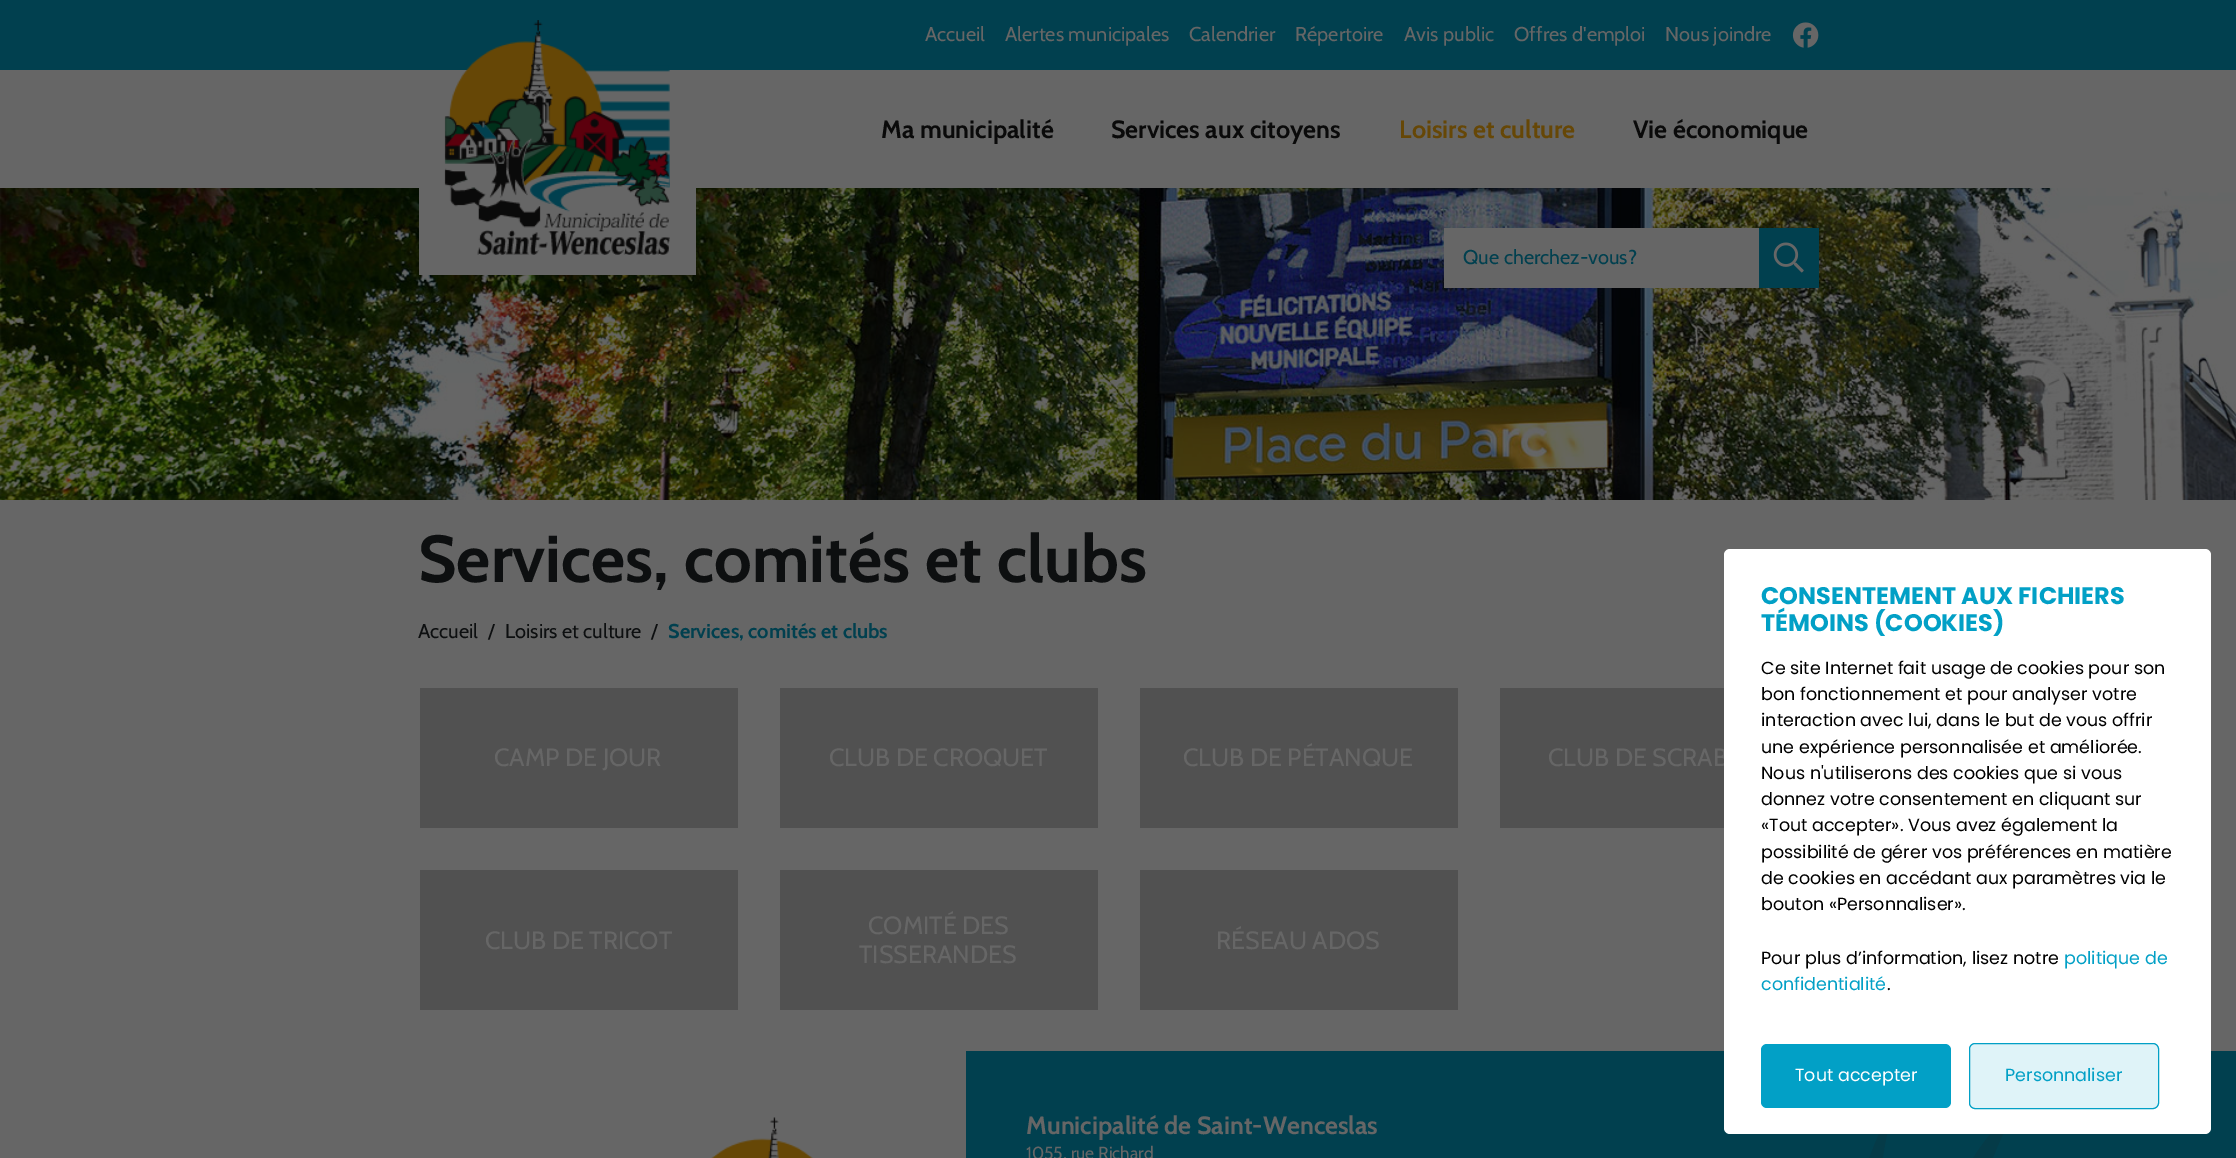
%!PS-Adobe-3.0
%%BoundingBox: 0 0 2236 1158
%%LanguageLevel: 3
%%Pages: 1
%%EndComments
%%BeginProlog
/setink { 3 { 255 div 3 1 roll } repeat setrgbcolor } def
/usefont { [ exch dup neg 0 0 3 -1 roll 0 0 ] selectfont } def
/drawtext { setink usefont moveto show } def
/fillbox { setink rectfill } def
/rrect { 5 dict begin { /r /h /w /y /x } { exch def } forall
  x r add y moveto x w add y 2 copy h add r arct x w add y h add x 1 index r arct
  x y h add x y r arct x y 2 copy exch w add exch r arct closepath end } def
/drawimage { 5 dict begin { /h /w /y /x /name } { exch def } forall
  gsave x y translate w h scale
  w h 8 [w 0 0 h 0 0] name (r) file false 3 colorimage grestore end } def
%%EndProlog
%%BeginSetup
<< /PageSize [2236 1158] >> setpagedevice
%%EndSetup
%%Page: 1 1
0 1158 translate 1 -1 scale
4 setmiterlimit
0 0 2236 1158 102 102 102 fillbox
(assets/img4.rgb) 0 188 2236 312 drawimage
419 188 277 87 102 102 102 fillbox
0 0 2236 70 1 64 79 fillbox
(assets/img1.rgb) 444 20 226 235 drawimage
(Accueil) 925 41 /Cabin-Regular 20 102 102 102 drawtext
(Alertes municipales) 1005 41 /Cabin-Regular 20 102 102 102 drawtext
(Calendrier) 1189 41 /Cabin-Regular 20 102 102 102 drawtext
(Répertoire) 1295 41 /Cabin-Regular 20 102 102 102 drawtext
(Avis public) 1404 41 /Cabin-Regular 20 102 102 102 drawtext
(Offres d'emploi) 1514 41 /Cabin-Regular 20 102 102 102 drawtext
(Nous joindre) 1665 41 /Cabin-Regular 20 102 102 102 drawtext
(assets/img2.rgb) 1792 22 27 26 drawimage
(Ma municipalité) 881 138 /Cabin-Bold 25 10 10 10 drawtext
(Services aux citoyens) 1111 138 /Cabin-Bold 25 10 10 10 drawtext
(Loisirs et culture) 1399 138 /Cabin-Bold 25 102 71 6 drawtext
(Vie économique) 1633 138 /Cabin-Bold 25 10 10 10 drawtext
1444 228 315 60 102 102 102 fillbox
(Que cherchez-vous?) 1463 264 /Cabin-Regular 20 1 64 79 drawtext
1759 228 60 60 1 64 79 fillbox
(assets/img3.rgb) 1773 242 31 31 drawimage
(Services, comités et clubs) 418 582 /Cabin-Bold 66.25 13 15 16 drawtext
(Accueil) 418 638 /Cabin-Regular 20 13 15 16 drawtext
(/) 488 638 /Cabin-Regular 20 13 15 16 drawtext
(Loisirs et culture) 505 638 /Cabin-Regular 20 13 15 16 drawtext
(/) 651 638 /Cabin-Regular 20 13 15 16 drawtext
(Services, comités et clubs) 668 638 /Cabin-Bold 20 1 64 79 drawtext
420 688 318 140 81 81 81 fillbox
(CAMP DE JOUR) 494 766 /Cabin-Regular 25 102 102 102 drawtext
780 688 318 140 81 81 81 fillbox
(CLUB DE CROQUET) 829 766 /Cabin-Regular 25 102 102 102 drawtext
1140 688 318 140 81 81 81 fillbox
(CLUB DE PÉTANQUE) 1183 766 /Cabin-Regular 25 102 102 102 drawtext
1500 688 224 140 81 81 81 fillbox
(CLUB DE SCRAB) 1548 766 /Cabin-Regular 25 102 102 102 drawtext
420 870 318 140 81 81 81 fillbox
(CLUB DE TRICOT) 485 949 /Cabin-Regular 25 102 102 102 drawtext
780 870 318 140 81 81 81 fillbox
(COMITÉ DES) 868 934 /Cabin-Regular 25 102 102 102 drawtext
(TISSERANDES) 859 963 /Cabin-Regular 25 102 102 102 drawtext
1140 870 318 140 81 81 81 fillbox
(RÉSEAU ADOS) 1216 949 /Cabin-Regular 25 102 102 102 drawtext
966 1051 1270 107 1 64 79 fillbox
255 255 255 setink
1724 549 487 585 6 rrect fill
(CONSENTEMENT AUX FICHIERS) 1761 604 /Poppins-Bold 24 2 160 198 drawtext
(TÉMOINS \(COOKIES\)) 1761 631 /Poppins-Bold 24 2 160 198 drawtext
(Ce site Internet fait usage de cookies pour son) 1761 674 /Poppins-Regular 17.5 0 0 0 drawtext
(bon fonctionnement et pour analyser votre) 1761 700 /Poppins-Regular 17.5 0 0 0 drawtext
(interaction avec lui, dans le but de vous offrir) 1761 726 /Poppins-Regular 17.5 0 0 0 drawtext
(une expérience personnalisée et améliorée.) 1761 753 /Poppins-Regular 17.5 0 0 0 drawtext
(Nous n'utiliserons des cookies que si vous) 1761 779 /Poppins-Regular 17.5 0 0 0 drawtext
(donnez votre consentement en cliquant sur) 1761 805 /Poppins-Regular 17.5 0 0 0 drawtext
(«Tout accepter». Vous avez également la) 1761 831 /Poppins-Regular 17.5 0 0 0 drawtext
(possibilité de gérer vos préférences en matière) 1761 858 /Poppins-Regular 17.5 0 0 0 drawtext
(de cookies en accédant aux paramètres via le) 1761 884 /Poppins-Regular 17.5 0 0 0 drawtext
(bouton «Personnaliser».) 1761 910 /Poppins-Regular 17.5 0 0 0 drawtext
(Pour plus d’information, lisez notre) 1761 964 /Poppins-Regular 17.5 0 0 0 drawtext
(politique de) 2064 964 /Poppins-Regular 17.5 2 160 198 drawtext
(confidentialité) 1761 990 /Poppins-Regular 17.5 2 160 198 drawtext
(.) 1887 990 /Poppins-Regular 17.5 0 0 0 drawtext
2 160 198 setink
1761 1044 190 64 6 rrect fill
(Tout accepter) 1795 1081 /Poppins-Regular 17.5 255 255 255 drawtext
223 243 248 setink
1969.5 1043.5 189 65 5.5 rrect gsave fill grestore
2 160 198 setink
stroke
(Personnaliser) 2005 1081 /Poppins-Regular 17.5 2 160 198 drawtext
(assets/img5.rgb) 711 1117 102 41 drawimage
(Municipalité de Saint-Wenceslas) 1026 1134 /Cabin-Bold 25 102 102 102 drawtext
(1055, rue Richard) 1026 1159 /Cabin-Regular 17.5 102 102 102 drawtext
(assets/img6.rgb) 1869 1134 135 24 drawimage
showpage
%%EOF
